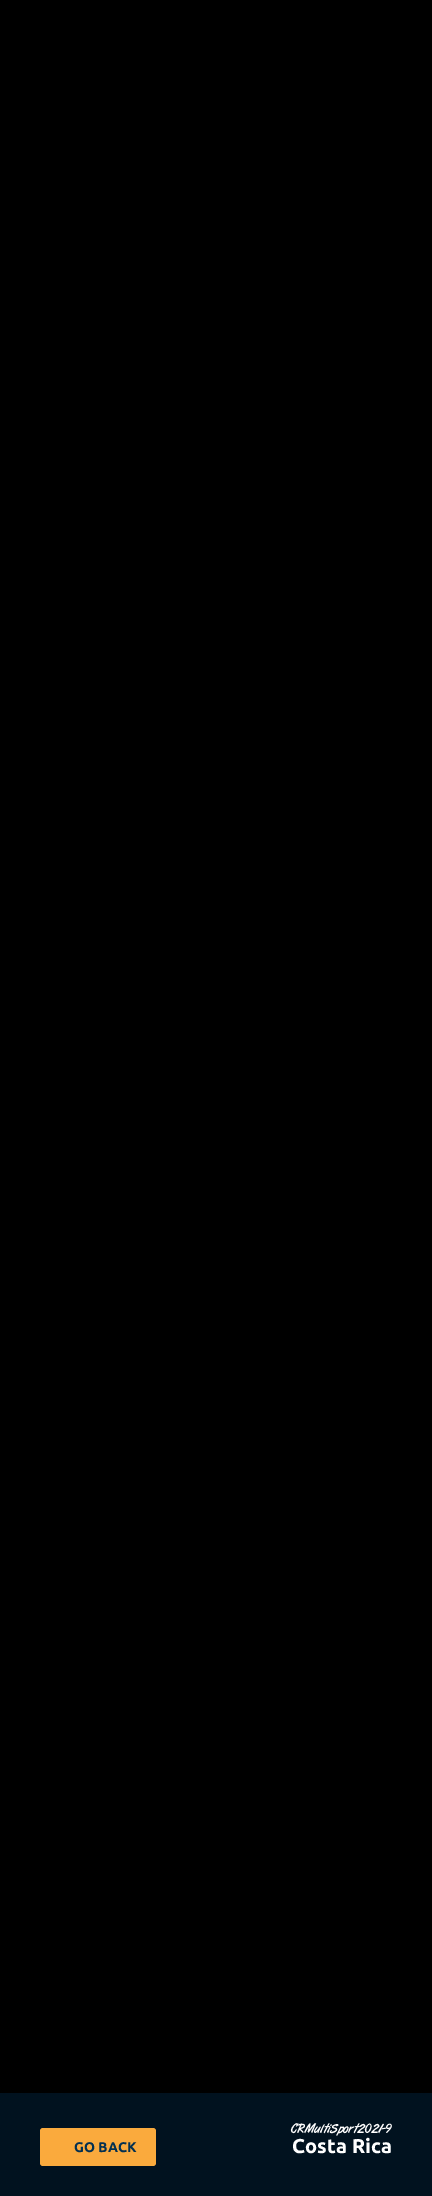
%!PS-Adobe-3.0
%%BoundingBox: 0 0 432 2196
%%LanguageLevel: 3
%%Pages: 1
%%EndComments
%%BeginProlog
/setink { 3 { 255 div 3 1 roll } repeat setrgbcolor } def
/usefont { [ exch dup neg 0 0 3 -1 roll 0 0 ] selectfont } def
/drawtext { setink usefont moveto show } def
/fillbox { setink rectfill } def
/rrect { 5 dict begin { /r /h /w /y /x } { exch def } forall
  x r add y moveto x w add y 2 copy h add r arct x w add y h add x 1 index r arct
  x y h add x y r arct x y 2 copy exch w add exch r arct closepath end } def
%%EndProlog
%%BeginSetup
<< /PageSize [432 2196] >> setpagedevice
%%EndSetup
%%Page: 1 1
0 2196 translate 1 -1 scale
4 setmiterlimit
0 0 432 2196 0 0 0 fillbox
0 2093 432 103 1 18 31 fillbox
250 170 61 setink
40 2128 116 38 3 rrect fill
(GO BACK) 74 2152 /Ubuntu-Bold 14 3 48 81 drawtext
(CRMultiSport2021-9) 291 2133 /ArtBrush-Regular 13 255 255 255 drawtext
(Costa Rica) 292 2153 /Ubuntu-Bold 20 255 255 255 drawtext
showpage
%%EOF
